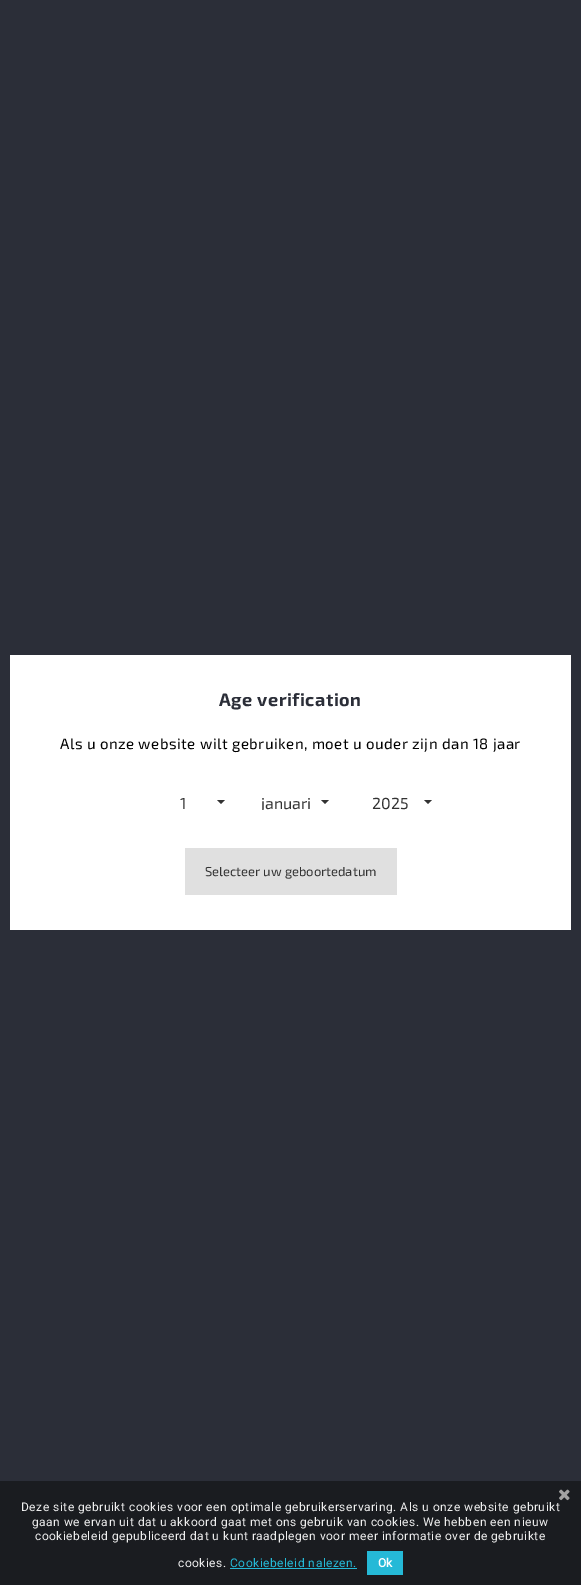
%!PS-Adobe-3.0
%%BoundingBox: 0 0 581 1585
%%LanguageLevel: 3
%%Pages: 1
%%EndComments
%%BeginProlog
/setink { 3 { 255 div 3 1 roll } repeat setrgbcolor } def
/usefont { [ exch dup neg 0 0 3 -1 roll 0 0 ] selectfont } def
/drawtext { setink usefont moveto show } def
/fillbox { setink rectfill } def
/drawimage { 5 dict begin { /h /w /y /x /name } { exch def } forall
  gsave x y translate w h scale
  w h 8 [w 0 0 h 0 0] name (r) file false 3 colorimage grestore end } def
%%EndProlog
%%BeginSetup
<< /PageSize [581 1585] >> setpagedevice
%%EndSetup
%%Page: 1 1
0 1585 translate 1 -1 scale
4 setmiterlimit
0 0 581 1585 43 46 56 fillbox
10 655 561 275 255 255 255 fillbox
/Exo2-Bold 18 usefont
43 46 56 setink
219 706 moveto 0.5 0 (Age verification) ashow
/Exo2-Regular 15 usefont
0 0 0 setink
60 749 moveto 0.5 0 (Als u onze website wilt gebruiken, moet u ouder zijn dan 18 jaar) ashow
(1) 180 809 /Exo2-Regular 16 51 51 51 drawtext
217 800 moveto 225 800 lineto 221 804 lineto closepath fill
gsave
257 795 59 15 rectclip
(januari) 261 809 /Exo2-Regular 16 51 51 51 drawtext
grestore
321 800 moveto 329 800 lineto 325 804 lineto closepath fill
(2025) 372 809 /Exo2-Regular 16 51 51 51 drawtext
424 800 moveto 432 800 lineto 428 804 lineto closepath fill
185 848 212 47 224 224 224 fillbox
(Selecteer uw geboortedatum) 205 876 /Exo2-Regular 13 51 51 51 drawtext
0 1481 581 104 26 28 32 fillbox
(assets/img1.rgb) 559 1489 11 12 drawimage
/Roboto-Regular 12 usefont
239 239 239 setink
21 1511 moveto 0.5 0 (Deze site gebruikt cookies voor een optimale gebruikerservaring. Als u onze website gebruikt) ashow
32 1526 moveto 0.5 0 (gaan we ervan uit dat u akkoord gaat met ons gebruik van cookies. We hebben een nieuw) ashow
35 1540 moveto 0.5 0 (cookiebeleid gepubliceerd dat u kunt raadplegen voor meer informatie over de gebruikte) ashow
178 1567 moveto 0.5 0 (cookies.) ashow
37 185 215 setink
230 1567 moveto 0.5 0 (Cookiebeleid nalezen.) ashow
230 1568 127 1 37 185 215 fillbox
367 1551 36 24 37 185 215 fillbox
(Ok) 378 1567 /Roboto-Bold 12 255 255 255 drawtext
showpage
%%EOF
